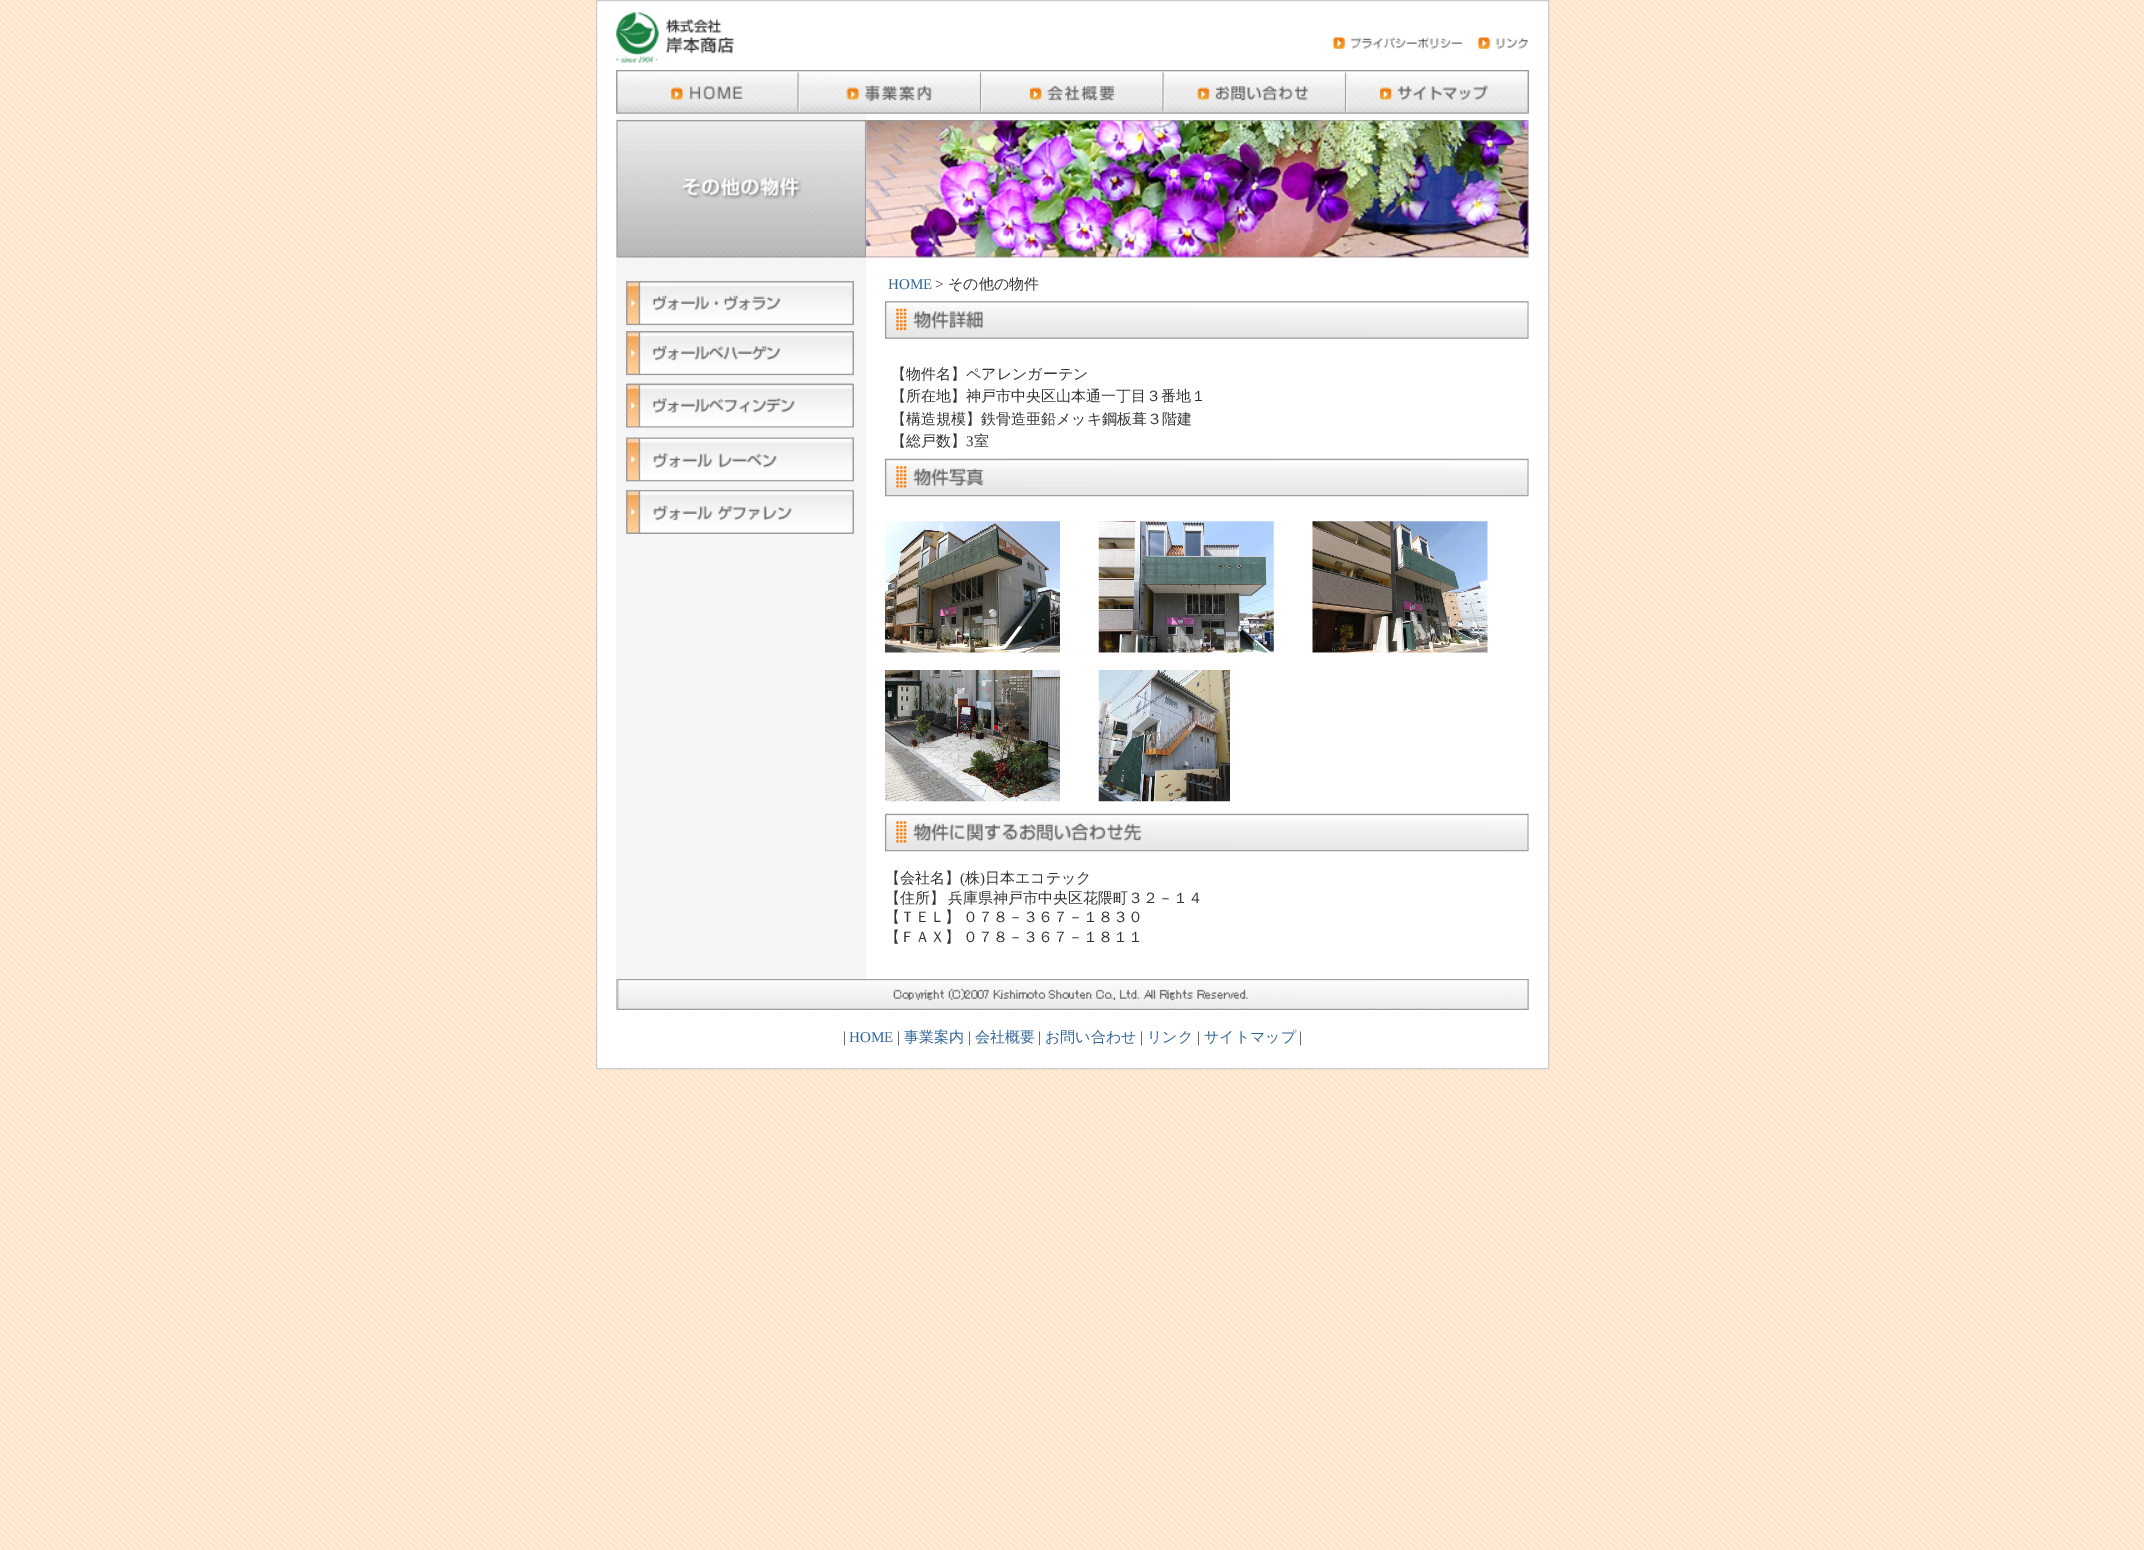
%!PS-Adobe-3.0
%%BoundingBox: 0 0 2144 1550
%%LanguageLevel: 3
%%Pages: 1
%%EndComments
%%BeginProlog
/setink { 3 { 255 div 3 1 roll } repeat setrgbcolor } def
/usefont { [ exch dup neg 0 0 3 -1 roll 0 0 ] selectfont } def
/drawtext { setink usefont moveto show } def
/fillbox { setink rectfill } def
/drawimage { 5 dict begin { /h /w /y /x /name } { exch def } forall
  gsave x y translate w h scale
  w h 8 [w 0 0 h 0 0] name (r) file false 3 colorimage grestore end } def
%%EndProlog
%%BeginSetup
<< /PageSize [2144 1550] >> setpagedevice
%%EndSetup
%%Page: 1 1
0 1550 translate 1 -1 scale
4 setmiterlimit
0 0 2144 1550 255 255 255 fillbox
(assets/img1.rgb) 0 0 2144 1550 drawimage
596.5 0.5 moveto 1548.5 0.5 lineto 1548.5 1068.5 lineto 596.5 1068.5 lineto closepath gsave fill grestore
204 204 204 setink
stroke
(assets/img2.rgb) 616 12 118 51 drawimage
(assets/img3.rgb) 1332 37 131 12 drawimage
(assets/img4.rgb) 1477 37 51 12 drawimage
(assets/img5.rgb) 616 70 183 44 drawimage
(assets/img6.rgb) 616 70 183 44 drawimage
(assets/img7.rgb) 798 70 184 44 drawimage
(assets/img8.rgb) 798 70 184 44 drawimage
(assets/img9.rgb) 981 70 183 44 drawimage
(assets/img10.rgb) 981 70 183 44 drawimage
(assets/img11.rgb) 1163 70 184 44 drawimage
(assets/img12.rgb) 1163 70 184 44 drawimage
(assets/img13.rgb) 1346 70 183 44 drawimage
(assets/img14.rgb) 1346 70 183 44 drawimage
(assets/img15.rgb) 616 113 913 866 drawimage
(assets/img16.rgb) 616 120 251 138 drawimage
(assets/img17.rgb) 866 120 663 138 drawimage
(assets/img18.rgb) 626 281 228 45 drawimage
(assets/img19.rgb) 626 281 228 44 drawimage
(assets/img20.rgb) 626 331 228 45 drawimage
(assets/img21.rgb) 626 331 228 44 drawimage
(assets/img22.rgb) 626 383 228 45 drawimage
(assets/img23.rgb) 626 383 228 45 drawimage
(assets/img24.rgb) 626 437 228 45 drawimage
(assets/img25.rgb) 626 437 228 45 drawimage
(assets/img26.rgb) 626 489 228 45 drawimage
(assets/img27.rgb) 626 490 228 44 drawimage
(HOME) 888 289 /LiberationSerif-Regular 15 51 102 153 drawtext
(>) 935 289 /LiberationSerif-Regular 15 51 51 51 drawtext
(その他の物件) 948 289 /WenQuanYiZenHei-Medium 15 51 51 51 drawtext
(assets/img28.rgb) 885 301 644 38 drawimage
(【物件名】ペアレンガーテン) 891 379 /WenQuanYiZenHei-Medium 15 51 51 51 drawtext
(【所在地】神戸市中央区山本通一丁目３番地１) 891 401 /WenQuanYiZenHei-Medium 15 51 51 51 drawtext
(【構造規模】鉄骨造亜鉛メッキ鋼板葺３階建) 891 424 /WenQuanYiZenHei-Medium 15 51 51 51 drawtext
(【総戸数】) 891 446 /WenQuanYiZenHei-Medium 15 51 51 51 drawtext
(3) 966 446 /LiberationSerif-Regular 15 51 51 51 drawtext
(室) 974 446 /WenQuanYiZenHei-Medium 15 51 51 51 drawtext
(assets/img29.rgb) 885 458 644 39 drawimage
(assets/img30.rgb) 885 521 175 132 drawimage
(assets/img31.rgb) 1098 521 176 132 drawimage
(assets/img32.rgb) 1312 521 176 132 drawimage
(assets/img33.rgb) 885 670 175 132 drawimage
(assets/img34.rgb) 1098 670 132 132 drawimage
(assets/img35.rgb) 885 813 644 39 drawimage
(【会社名】) 885 883 /WenQuanYiZenHei-Medium 15 51 51 51 drawtext
(\() 960 883 /LiberationSerif-Regular 15 51 51 51 drawtext
(株) 965 883 /WenQuanYiZenHei-Medium 15 51 51 51 drawtext
(\)) 980 883 /LiberationSerif-Regular 15 51 51 51 drawtext
(日本エコテック) 985 883 /WenQuanYiZenHei-Medium 15 51 51 51 drawtext
885 903 moveto -1 0 32 (【住所】 兵庫県神戸市中央区花隈町３２－１４) widthshow
885 922 moveto -1 0 32 (【ＴＥＬ】 ０７８－３６７－１８３０) widthshow
885 942 moveto -1 0 32 (【ＦＡＸ】 ０７８－３６７－１８１１) widthshow
(assets/img36.rgb) 616 979 913 31 drawimage
(|) 843 1042 /LiberationSerif-Regular 15 51 51 51 drawtext
(HOME) 849 1042 /LiberationSerif-Regular 15 51 102 153 drawtext
(|) 897 1042 /LiberationSerif-Regular 15 51 51 51 drawtext
(事業案内) 904 1042 /WenQuanYiZenHei-Medium 15 51 102 153 drawtext
(|) 968 1042 /LiberationSerif-Regular 15 51 51 51 drawtext
(会社概要) 975 1042 /WenQuanYiZenHei-Medium 15 51 102 153 drawtext
(|) 1038 1042 /LiberationSerif-Regular 15 51 51 51 drawtext
(お問い合わせ) 1045 1042 /WenQuanYiZenHei-Medium 15 51 102 153 drawtext
(|) 1140 1042 /LiberationSerif-Regular 15 51 51 51 drawtext
(リンク) 1147 1042 /WenQuanYiZenHei-Medium 15 51 102 153 drawtext
(|) 1197 1042 /LiberationSerif-Regular 15 51 51 51 drawtext
(サイトマップ) 1204 1042 /WenQuanYiZenHei-Medium 15 51 102 153 drawtext
(|) 1299 1042 /LiberationSerif-Regular 15 51 51 51 drawtext
showpage
%%EOF
